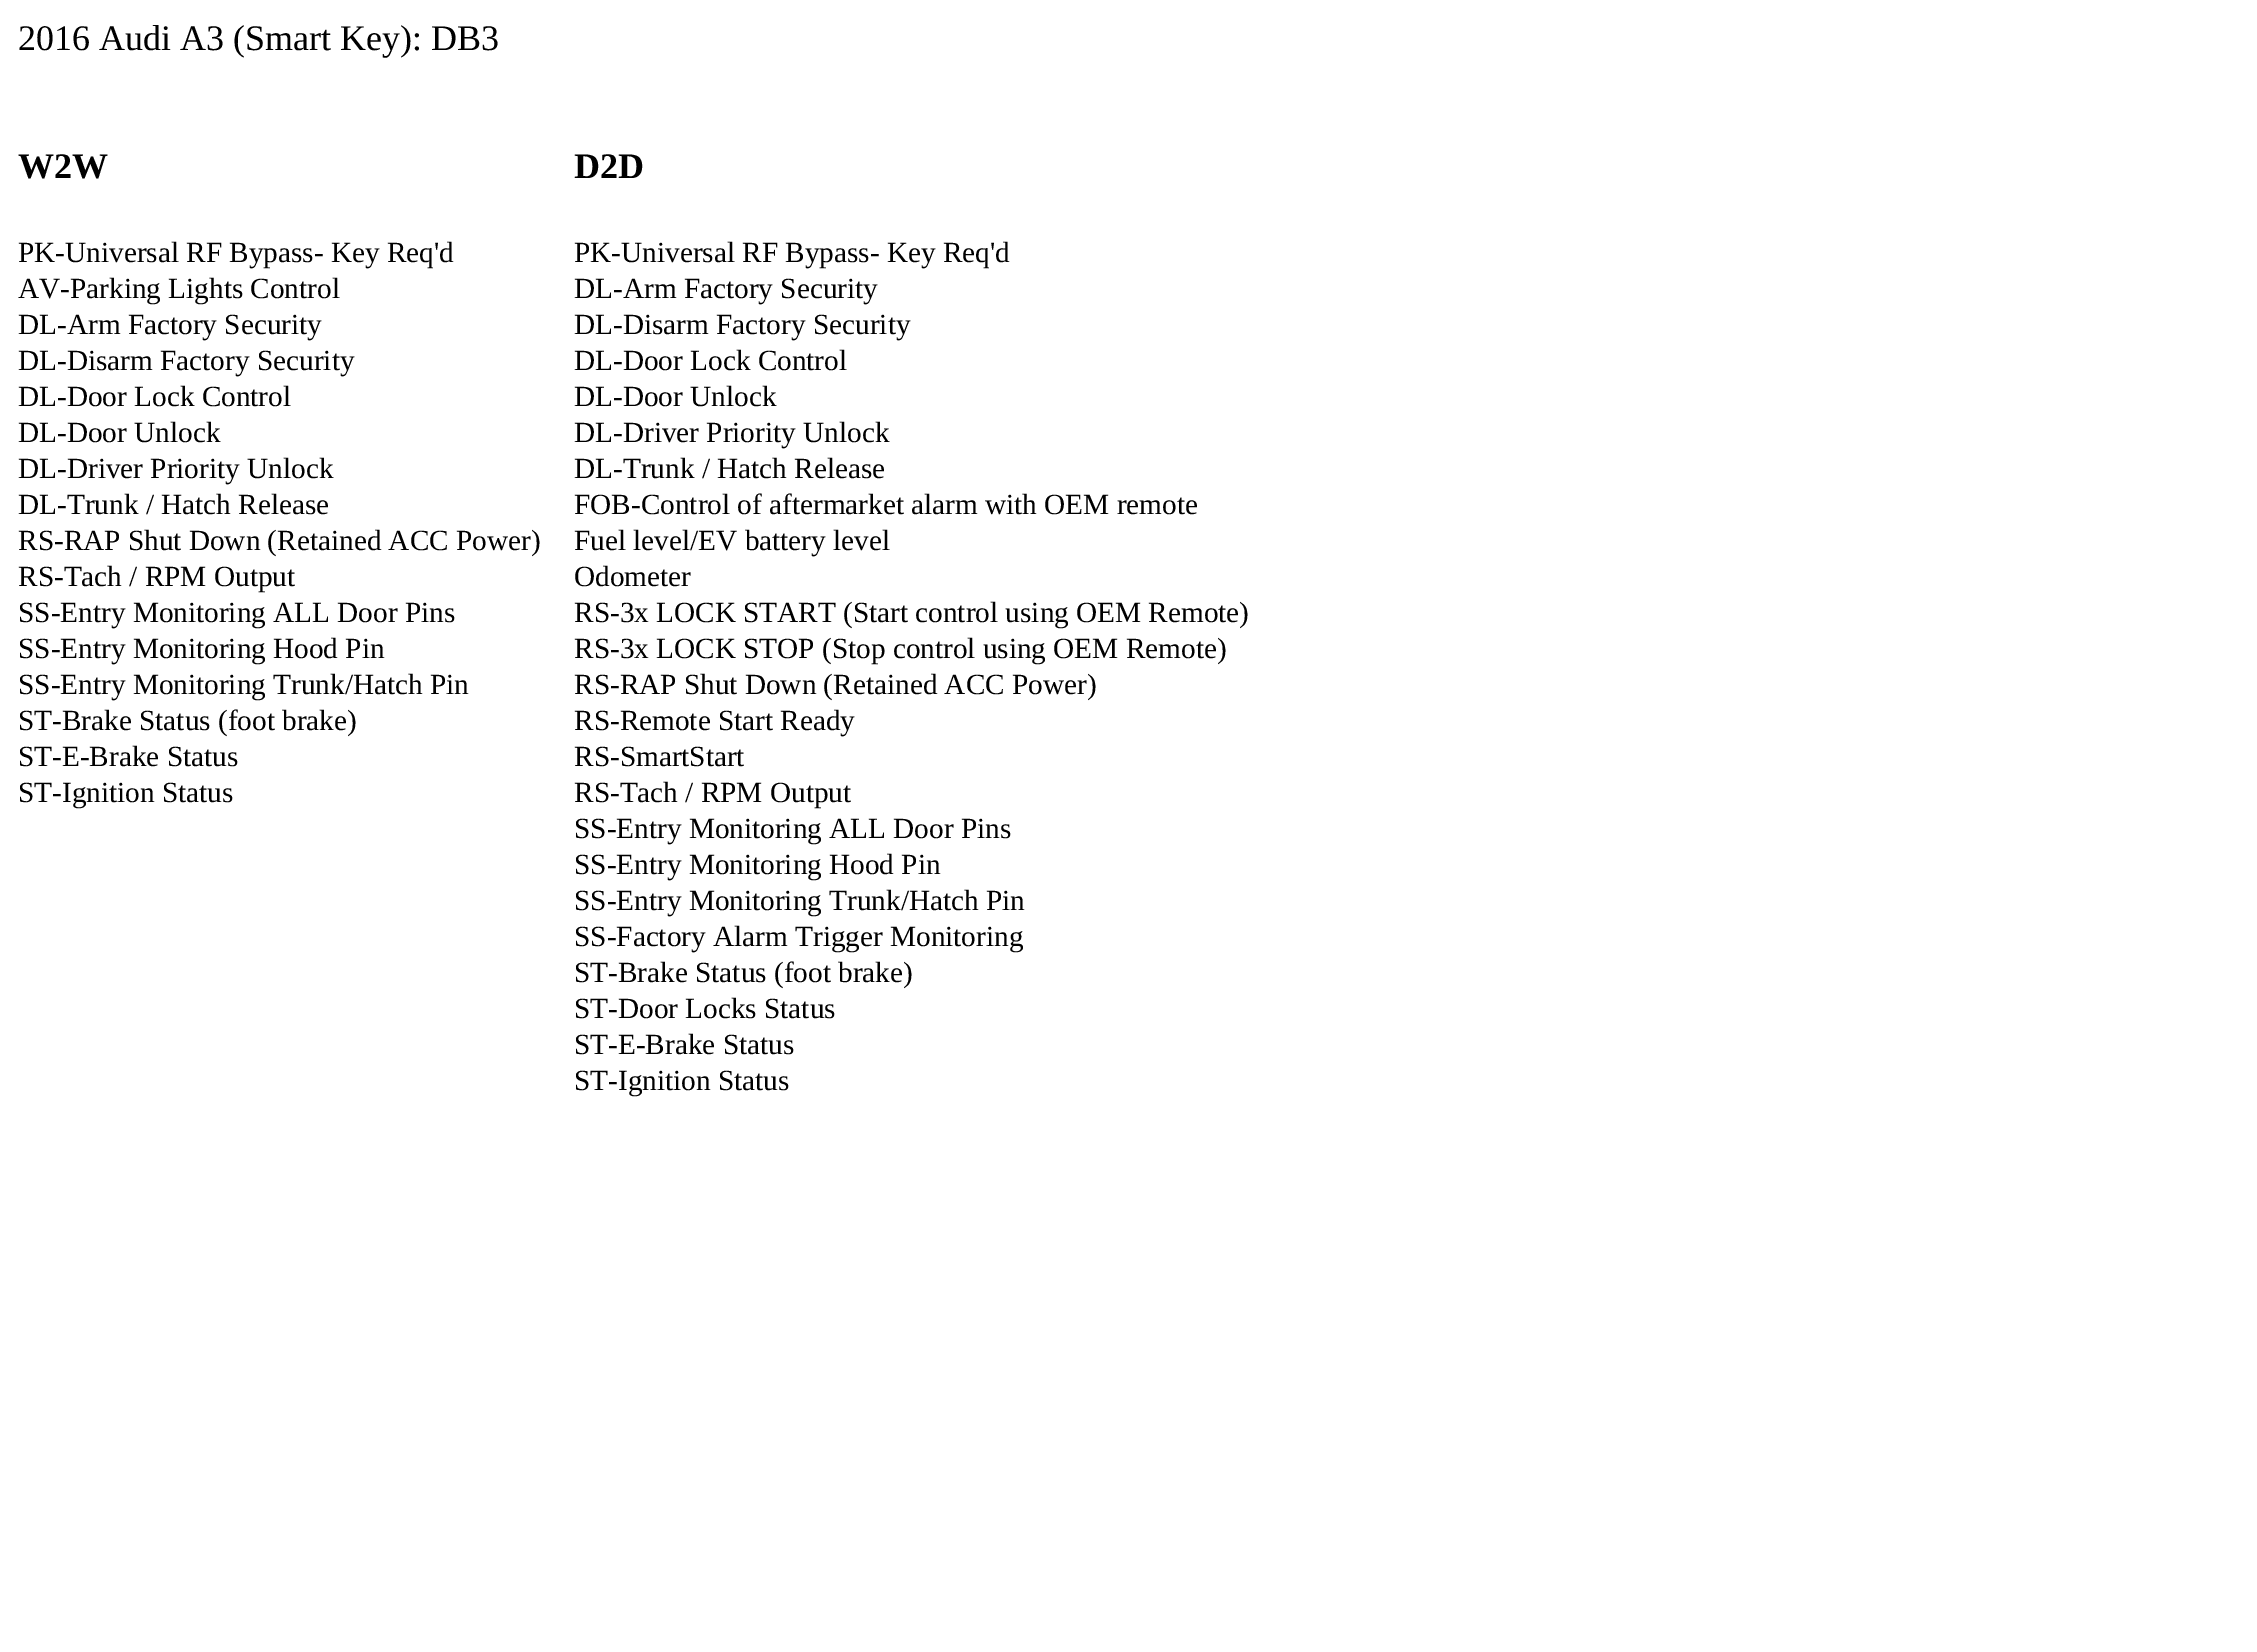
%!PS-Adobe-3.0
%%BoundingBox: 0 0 2257 1652
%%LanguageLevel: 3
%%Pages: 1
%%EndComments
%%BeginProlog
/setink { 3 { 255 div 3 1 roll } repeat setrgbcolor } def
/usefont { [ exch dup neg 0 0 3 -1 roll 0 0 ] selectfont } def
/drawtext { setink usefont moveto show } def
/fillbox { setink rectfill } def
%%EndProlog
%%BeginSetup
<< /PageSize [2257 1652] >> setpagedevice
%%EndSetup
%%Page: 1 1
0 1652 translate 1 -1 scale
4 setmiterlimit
0 0 2257 1652 255 255 255 fillbox
(2016 Audi A3 \(Smart Key\): DB3) 18 50 /LiberationSerif-Regular 36 0 0 0 drawtext
(W2W) 18 178 /LiberationSerif-Bold 36 0 0 0 drawtext
(PK-Universal RF Bypass- Key Req'd) 18 262 /LiberationSerif-Regular 29.25 0 0 0 drawtext
(AV-Parking Lights Control) 18 298 /LiberationSerif-Regular 29.25 0 0 0 drawtext
(DL-Arm Factory Security) 18 334 /LiberationSerif-Regular 29.25 0 0 0 drawtext
(DL-Disarm Factory Security) 18 370 /LiberationSerif-Regular 29.25 0 0 0 drawtext
(DL-Door Lock Control) 18 406 /LiberationSerif-Regular 29.25 0 0 0 drawtext
(DL-Door Unlock) 18 442 /LiberationSerif-Regular 29.25 0 0 0 drawtext
(DL-Driver Priority Unlock) 18 478 /LiberationSerif-Regular 29.25 0 0 0 drawtext
(DL-Trunk / Hatch Release) 18 514 /LiberationSerif-Regular 29.25 0 0 0 drawtext
(RS-RAP Shut Down \(Retained ACC Power\)) 18 550 /LiberationSerif-Regular 29.25 0 0 0 drawtext
(RS-Tach / RPM Output) 18 586 /LiberationSerif-Regular 29.25 0 0 0 drawtext
(SS-Entry Monitoring ALL Door Pins) 18 622 /LiberationSerif-Regular 29.25 0 0 0 drawtext
(SS-Entry Monitoring Hood Pin) 18 658 /LiberationSerif-Regular 29.25 0 0 0 drawtext
(SS-Entry Monitoring Trunk/Hatch Pin) 18 694 /LiberationSerif-Regular 29.25 0 0 0 drawtext
(ST-Brake Status \(foot brake\)) 18 730 /LiberationSerif-Regular 29.25 0 0 0 drawtext
(ST-E-Brake Status) 18 766 /LiberationSerif-Regular 29.25 0 0 0 drawtext
(ST-Ignition Status) 18 802 /LiberationSerif-Regular 29.25 0 0 0 drawtext
(D2D) 574 178 /LiberationSerif-Bold 36 0 0 0 drawtext
(PK-Universal RF Bypass- Key Req'd) 574 262 /LiberationSerif-Regular 29.25 0 0 0 drawtext
(DL-Arm Factory Security) 574 298 /LiberationSerif-Regular 29.25 0 0 0 drawtext
(DL-Disarm Factory Security) 574 334 /LiberationSerif-Regular 29.25 0 0 0 drawtext
(DL-Door Lock Control) 574 370 /LiberationSerif-Regular 29.25 0 0 0 drawtext
(DL-Door Unlock) 574 406 /LiberationSerif-Regular 29.25 0 0 0 drawtext
(DL-Driver Priority Unlock) 574 442 /LiberationSerif-Regular 29.25 0 0 0 drawtext
(DL-Trunk / Hatch Release) 574 478 /LiberationSerif-Regular 29.25 0 0 0 drawtext
(FOB-Control of aftermarket alarm with OEM remote) 574 514 /LiberationSerif-Regular 29.25 0 0 0 drawtext
(Fuel level/EV battery level) 574 550 /LiberationSerif-Regular 29.25 0 0 0 drawtext
(Odometer) 574 586 /LiberationSerif-Regular 29.25 0 0 0 drawtext
(RS-3x LOCK START \(Start control using OEM Remote\)) 574 622 /LiberationSerif-Regular 29.25 0 0 0 drawtext
(RS-3x LOCK STOP \(Stop control using OEM Remote\)) 574 658 /LiberationSerif-Regular 29.25 0 0 0 drawtext
(RS-RAP Shut Down \(Retained ACC Power\)) 574 694 /LiberationSerif-Regular 29.25 0 0 0 drawtext
(RS-Remote Start Ready) 574 730 /LiberationSerif-Regular 29.25 0 0 0 drawtext
(RS-SmartStart) 574 766 /LiberationSerif-Regular 29.25 0 0 0 drawtext
(RS-Tach / RPM Output) 574 802 /LiberationSerif-Regular 29.25 0 0 0 drawtext
(SS-Entry Monitoring ALL Door Pins) 574 838 /LiberationSerif-Regular 29.25 0 0 0 drawtext
(SS-Entry Monitoring Hood Pin) 574 874 /LiberationSerif-Regular 29.25 0 0 0 drawtext
(SS-Entry Monitoring Trunk/Hatch Pin) 574 910 /LiberationSerif-Regular 29.25 0 0 0 drawtext
(SS-Factory Alarm Trigger Monitoring) 574 946 /LiberationSerif-Regular 29.25 0 0 0 drawtext
(ST-Brake Status \(foot brake\)) 574 982 /LiberationSerif-Regular 29.25 0 0 0 drawtext
(ST-Door Locks Status) 574 1018 /LiberationSerif-Regular 29.25 0 0 0 drawtext
(ST-E-Brake Status) 574 1054 /LiberationSerif-Regular 29.25 0 0 0 drawtext
(ST-Ignition Status) 574 1090 /LiberationSerif-Regular 29.25 0 0 0 drawtext
showpage
%%EOF
